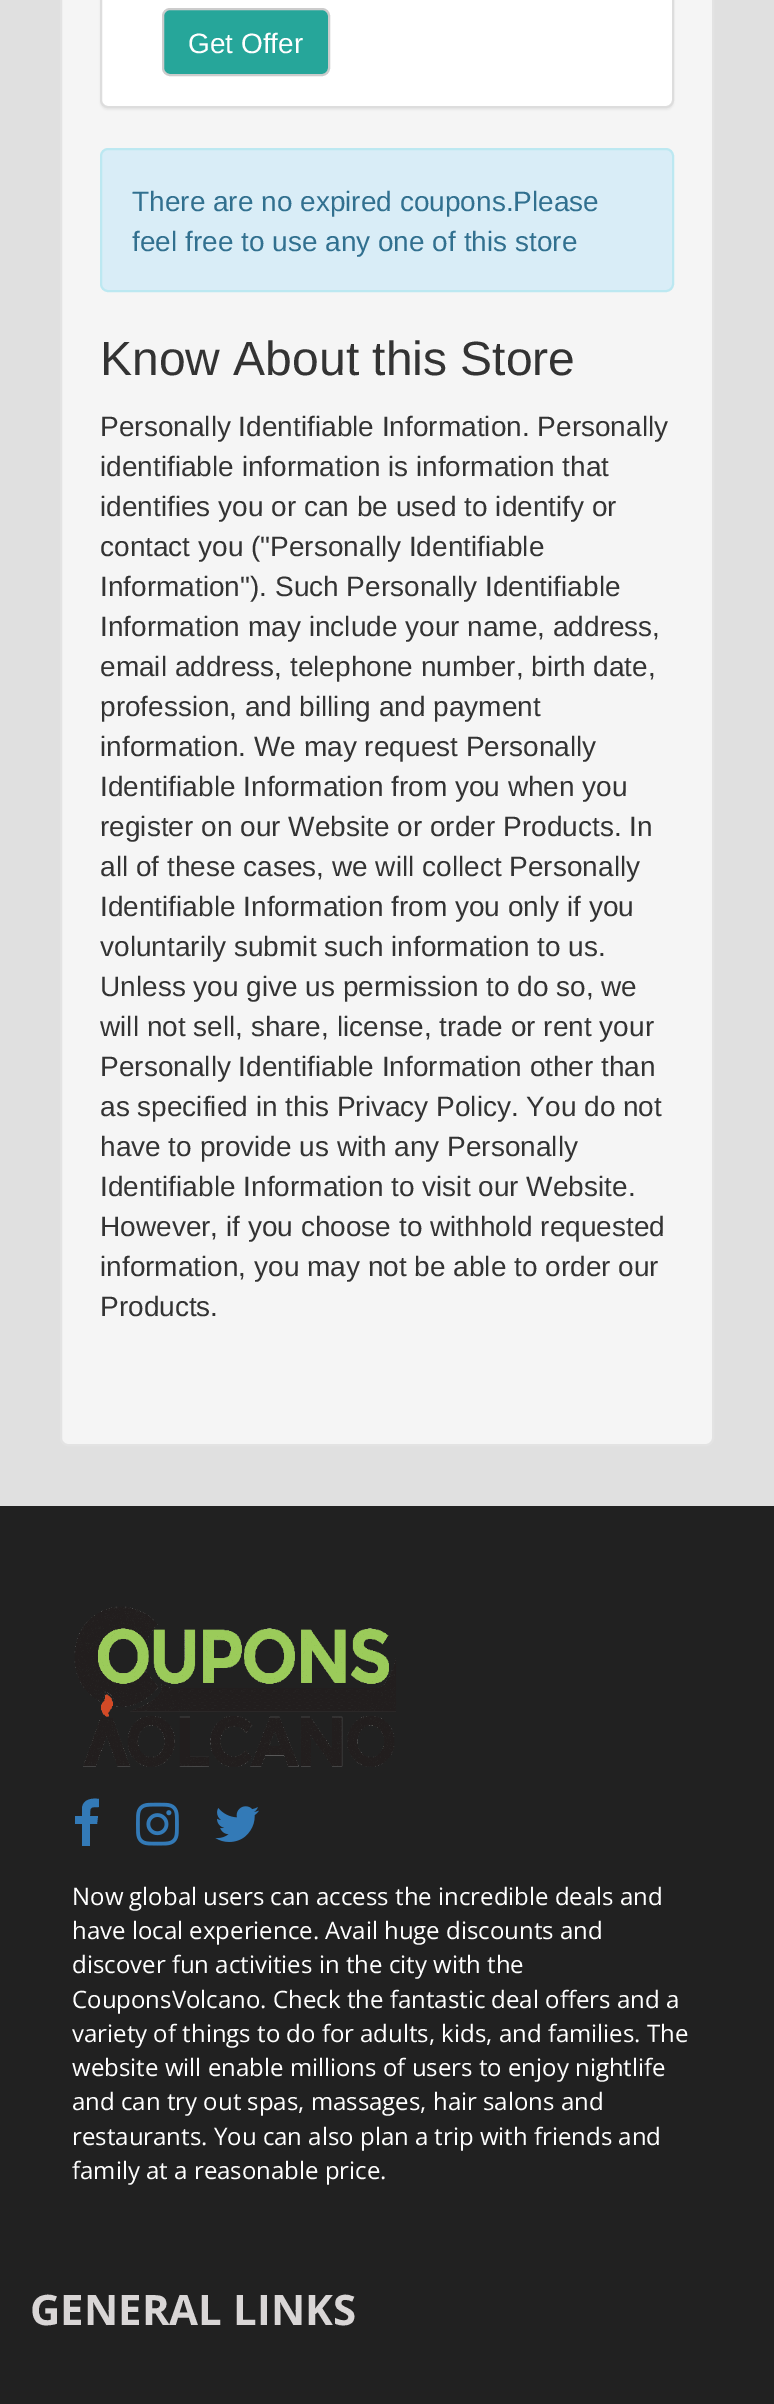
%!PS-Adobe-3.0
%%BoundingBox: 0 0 774 2404
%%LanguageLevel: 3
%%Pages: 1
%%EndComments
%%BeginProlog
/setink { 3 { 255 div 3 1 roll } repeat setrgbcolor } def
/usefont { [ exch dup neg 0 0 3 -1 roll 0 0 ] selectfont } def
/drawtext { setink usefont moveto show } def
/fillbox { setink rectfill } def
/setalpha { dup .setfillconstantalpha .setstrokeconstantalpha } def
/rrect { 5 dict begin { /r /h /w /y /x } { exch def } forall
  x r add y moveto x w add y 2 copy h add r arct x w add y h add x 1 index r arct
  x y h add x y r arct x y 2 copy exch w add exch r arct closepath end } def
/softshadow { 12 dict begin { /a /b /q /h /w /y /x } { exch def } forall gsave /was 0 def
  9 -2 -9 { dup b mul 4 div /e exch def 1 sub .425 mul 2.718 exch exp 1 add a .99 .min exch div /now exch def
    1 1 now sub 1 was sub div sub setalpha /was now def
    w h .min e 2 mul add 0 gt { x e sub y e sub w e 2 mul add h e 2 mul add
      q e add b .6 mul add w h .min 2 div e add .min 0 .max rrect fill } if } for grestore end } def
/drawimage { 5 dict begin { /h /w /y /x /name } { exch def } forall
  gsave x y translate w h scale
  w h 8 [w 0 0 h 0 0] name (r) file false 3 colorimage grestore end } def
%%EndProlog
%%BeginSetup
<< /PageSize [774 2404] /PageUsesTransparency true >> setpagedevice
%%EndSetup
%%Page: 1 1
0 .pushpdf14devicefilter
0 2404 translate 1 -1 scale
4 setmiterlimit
0 0 774 2404 224 224 224 fillbox
245 245 245 setink
61 -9 652 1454 7 rrect gsave fill grestore
227 227 227 setink
2 setlinewidth
stroke
0 0 0 setink
100 -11 574 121 8 1 0.05 softshadow
255 255 255 setink
101 -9 572 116 7 rrect gsave fill grestore
221 221 221 setink
stroke
38 166 154 setink
163 9 166 66 7 rrect gsave fill grestore
204 204 204 setink
stroke
(Get Offer) 188 53 /LiberationSans-Regular 28 255 255 255 drawtext
217 237 247 setink
101 149 572 142 7 rrect gsave fill grestore
188 232 241 setink
stroke
(There are no expired coupons.Please) 132 211 /LiberationSans-Regular 28 49 112 143 drawtext
(feel free to use any one of this store) 132 251 /LiberationSans-Regular 28 49 112 143 drawtext
(Know About this Store) 100 375 /LiberationSans-Regular 48 51 51 51 drawtext
(Personally Identifiable Information. Personally) 100 436 /LiberationSans-Regular 28 51 51 51 drawtext
(identifiable information is information that) 100 476 /LiberationSans-Regular 28 51 51 51 drawtext
(identifies you or can be used to identify or) 100 516 /LiberationSans-Regular 28 51 51 51 drawtext
(contact you \("Personally Identifiable) 100 556 /LiberationSans-Regular 28 51 51 51 drawtext
(Information"\). Such Personally Identifiable) 100 596 /LiberationSans-Regular 28 51 51 51 drawtext
(Information may include your name, address,) 100 636 /LiberationSans-Regular 28 51 51 51 drawtext
(email address, telephone number, birth date,) 100 676 /LiberationSans-Regular 28 51 51 51 drawtext
(profession, and billing and payment) 100 716 /LiberationSans-Regular 28 51 51 51 drawtext
(information. We may request Personally) 100 756 /LiberationSans-Regular 28 51 51 51 drawtext
(Identifiable Information from you when you) 100 796 /LiberationSans-Regular 28 51 51 51 drawtext
(register on our Website or order Products. In) 100 836 /LiberationSans-Regular 28 51 51 51 drawtext
(all of these cases, we will collect Personally) 100 876 /LiberationSans-Regular 28 51 51 51 drawtext
(Identifiable Information from you only if you) 100 916 /LiberationSans-Regular 28 51 51 51 drawtext
(voluntarily submit such information to us.) 100 956 /LiberationSans-Regular 28 51 51 51 drawtext
(Unless you give us permission to do so, we) 100 996 /LiberationSans-Regular 28 51 51 51 drawtext
(will not sell, share, license, trade or rent your) 100 1036 /LiberationSans-Regular 28 51 51 51 drawtext
(Personally Identifiable Information other than) 100 1076 /LiberationSans-Regular 28 51 51 51 drawtext
(as specified in this Privacy Policy. You do not) 100 1116 /LiberationSans-Regular 28 51 51 51 drawtext
(have to provide us with any Personally) 100 1156 /LiberationSans-Regular 28 51 51 51 drawtext
(Identifiable Information to visit our Website.) 100 1196 /LiberationSans-Regular 28 51 51 51 drawtext
(However, if you choose to withhold requested) 100 1236 /LiberationSans-Regular 28 51 51 51 drawtext
(information, you may not be able to order our) 100 1276 /LiberationSans-Regular 28 51 51 51 drawtext
(Products.) 100 1316 /LiberationSans-Regular 28 51 51 51 drawtext
0 1506 774 898 33 33 33 fillbox
(assets/img1.rgb) 74 1606 322 161 drawimage
51 122 183 setink
99 1799 moveto 99 1807 lineto 90 1807 90 1807 90 1816 curveto 98 1816 lineto 97 1824 lineto 90 1824 lineto 90 1846 lineto 82 1846 lineto 82 1824 lineto 75 1824 lineto 75 1816 lineto 82 1816 lineto 82 1808 lineto 83 1799 92 1798 99 1799 curveto closepath fill
(assets/img2.rgb) 136 1802 43 44 drawimage
(assets/img3.rgb) 215 1806 44 36 drawimage
(Now global users can access the incredible deals and) 72 1905 /OpenSans-Regular 24 255 255 255 drawtext
(have local experience. Avail huge discounts and) 72 1939 /OpenSans-Regular 24 255 255 255 drawtext
(discover fun activities in the city with the) 72 1973 /OpenSans-Regular 24 255 255 255 drawtext
(CouponsVolcano. Check the fantastic deal offers and a) 72 2008 /OpenSans-Regular 24 255 255 255 drawtext
(variety of things to do for adults, kids, and families. The) 72 2042 /OpenSans-Regular 24 255 255 255 drawtext
(website will enable millions of users to enjoy nightlife) 72 2076 /OpenSans-Regular 24 255 255 255 drawtext
(and can try out spas, massages, hair salons and) 72 2110 /OpenSans-Regular 24 255 255 255 drawtext
(restaurants. You can also plan a trip with friends and) 72 2145 /OpenSans-Regular 24 255 255 255 drawtext
(family at a reasonable price.) 72 2179 /OpenSans-Regular 24 255 255 255 drawtext
(GENERAL LINKS) 30 2325 /OpenSans-Bold 42 217 214 214 drawtext
.poppdf14devicefilter showpage
%%EOF
